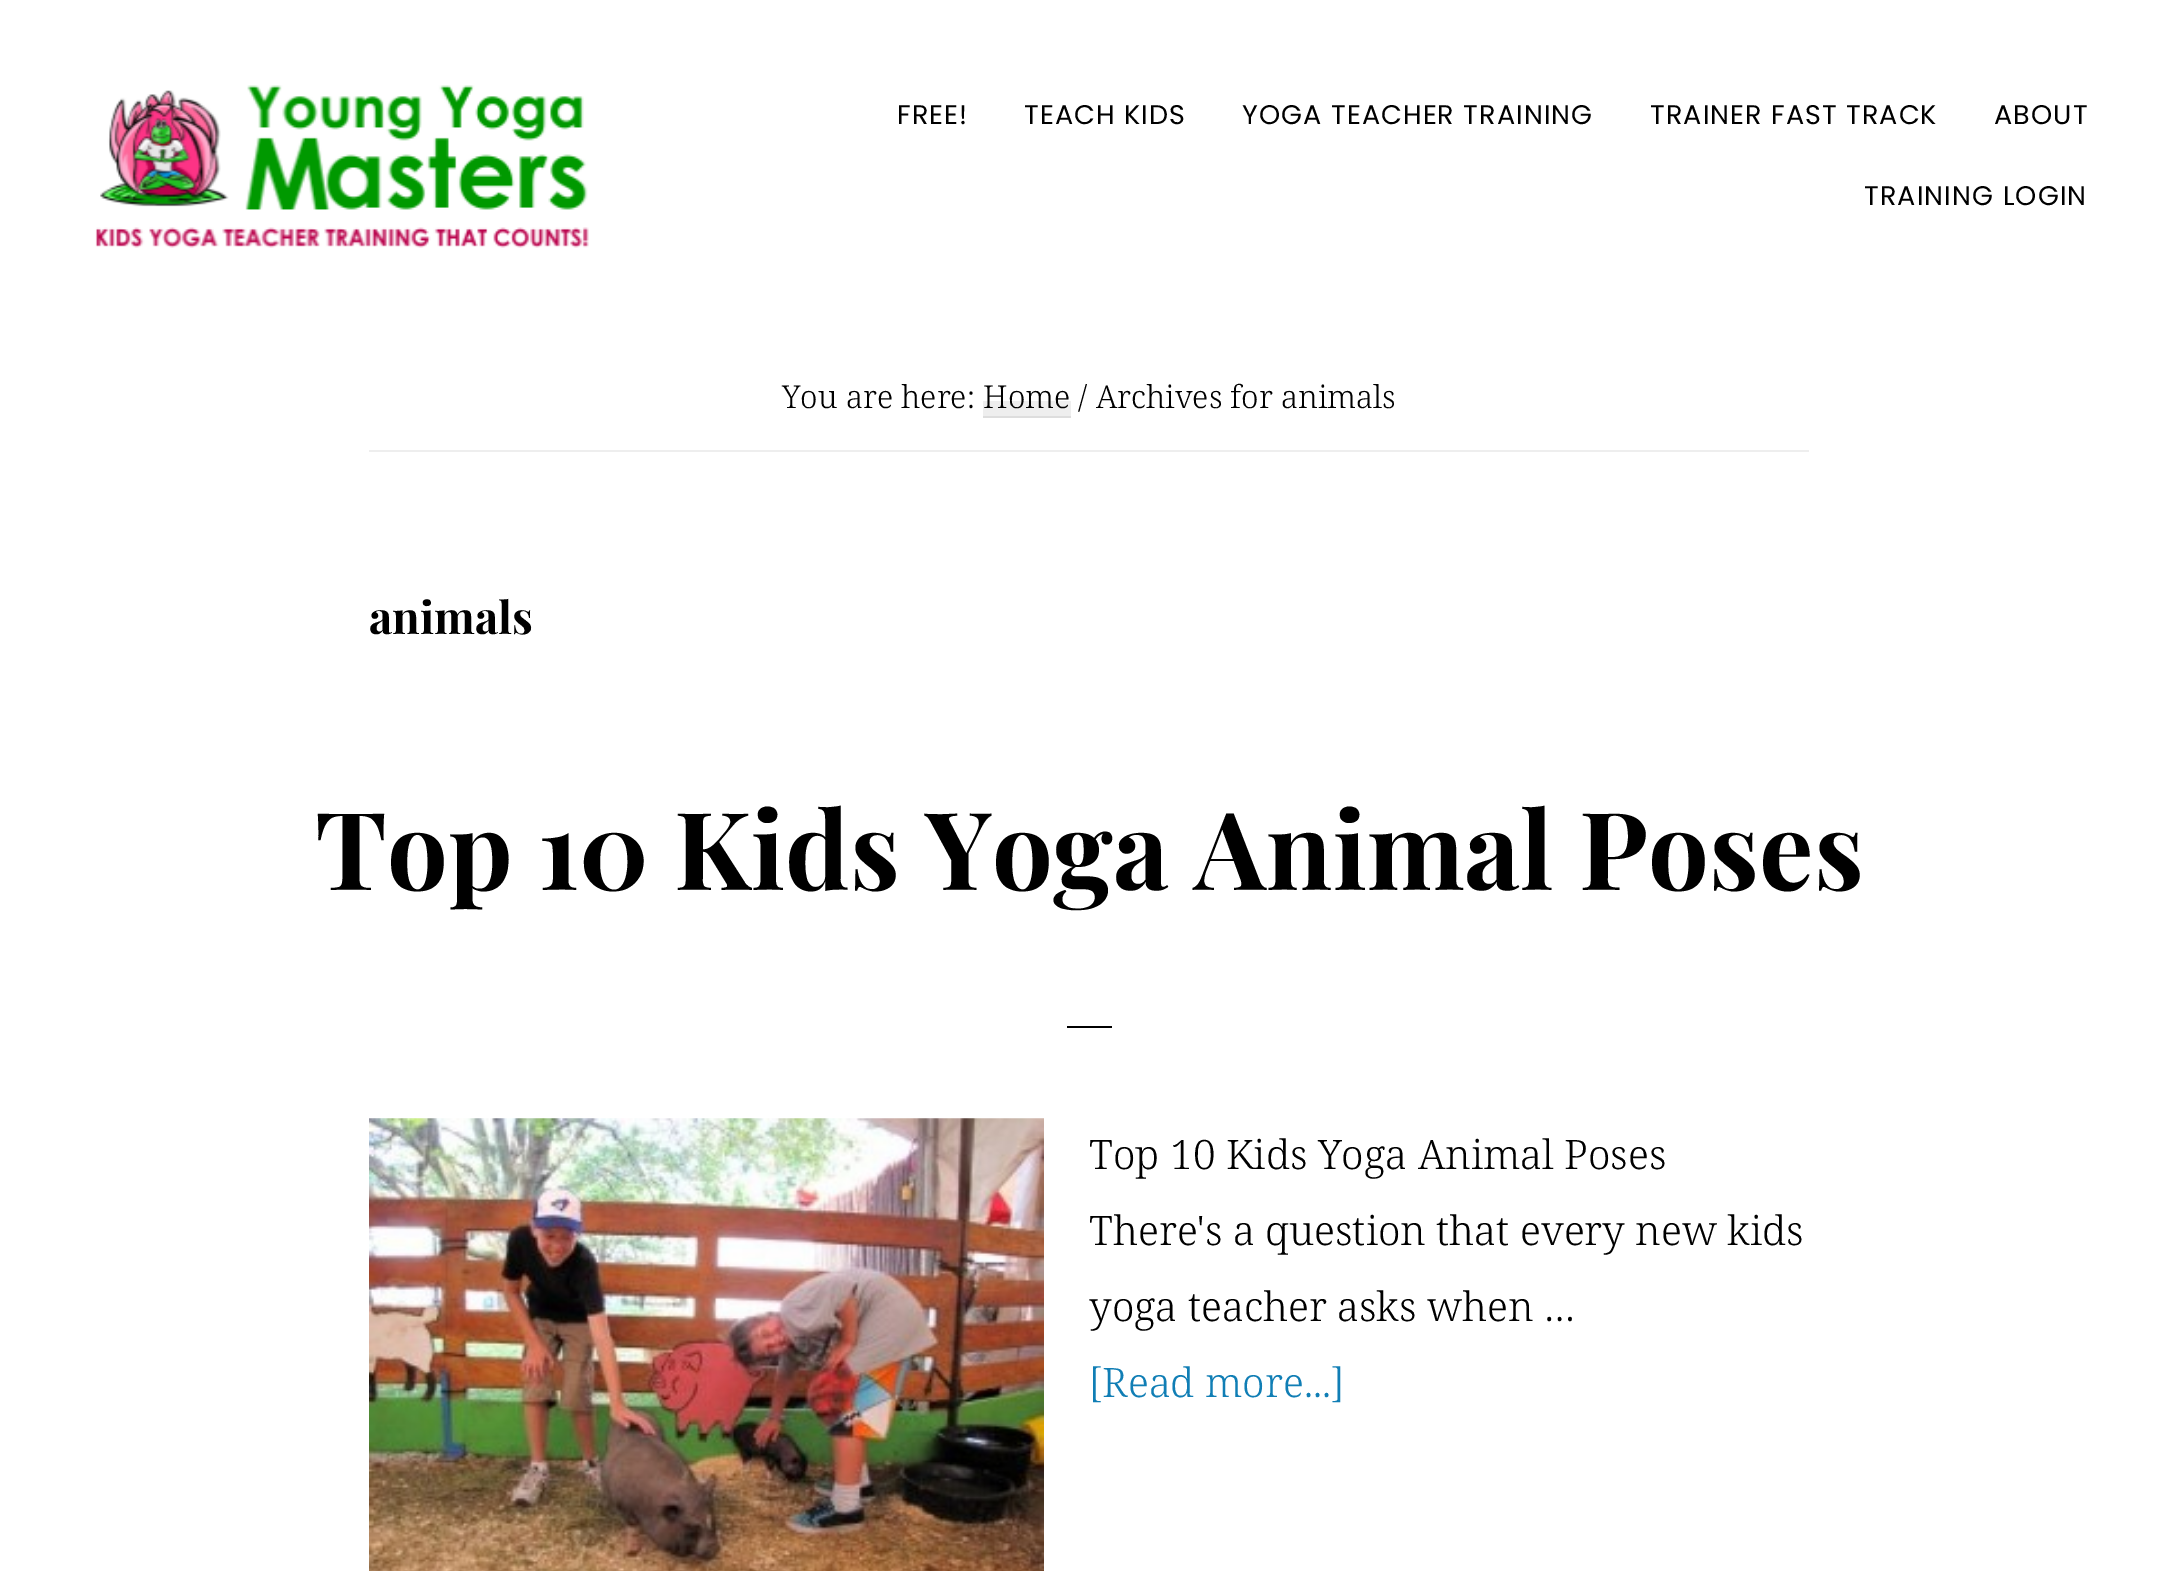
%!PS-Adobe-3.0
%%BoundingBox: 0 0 2177 1571
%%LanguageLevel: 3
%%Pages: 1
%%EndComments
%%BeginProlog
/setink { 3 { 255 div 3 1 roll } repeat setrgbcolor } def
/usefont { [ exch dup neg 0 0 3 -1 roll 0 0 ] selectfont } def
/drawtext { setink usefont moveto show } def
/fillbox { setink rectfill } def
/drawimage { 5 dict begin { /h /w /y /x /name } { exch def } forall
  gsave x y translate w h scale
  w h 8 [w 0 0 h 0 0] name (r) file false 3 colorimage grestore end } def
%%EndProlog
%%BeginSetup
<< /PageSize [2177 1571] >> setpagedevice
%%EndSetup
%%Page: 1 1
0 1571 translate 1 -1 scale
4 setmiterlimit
0 0 2177 1571 255 255 255 fillbox
(assets/img1.rgb) 95 85 494 163 drawimage
/Poppins-Regular 27 usefont
0 0 0 setink
897 124 moveto 1.1 0 (FREE!) ashow
1024 124 moveto 1.1 0 (TEACH KIDS) ashow
1242 124 moveto 1.1 0 (YOGA TEACHER TRAINING) ashow
1650 124 moveto 1.1 0 (TRAINER FAST TRACK) ashow
1994 124 moveto 1.1 0 (ABOUT) ashow
1864 205 moveto 1.1 0 (TRAINING LOGIN) ashow
369 450 1440 2 238 238 238 fillbox
(You are here:) 782 408 /NotoSerif-Light 31.5 0 0 0 drawtext
983 401 88 15 238 238 238 fillbox
(Home / Archives for animals) 983 408 /NotoSerif-Light 31.5 0 0 0 drawtext
983 416 88 2 221 221 221 fillbox
(animals) 369 634 /PlayfairDisplay-Bold 45 0 0 0 drawtext
(Top 10 Kids Yoga Animal Poses) 315 890 /PlayfairDisplay-Bold 108 0 0 0 drawtext
1067 1026 45 2 0 0 0 fillbox
(assets/img2.rgb) 369 1118 675 453 drawimage
(Top 10 Kids Yoga Animal Poses) 1089 1169 /NotoSerif-Light 40.5 0 0 0 drawtext
(There's a question that every new kids) 1089 1245 /NotoSerif-Light 40.5 0 0 0 drawtext
(yoga teacher asks when …) 1089 1321 /NotoSerif-Light 40.5 0 0 0 drawtext
([Read more...]) 1089 1397 /NotoSerif-Light 40.5 16 126 181 drawtext
showpage
%%EOF
